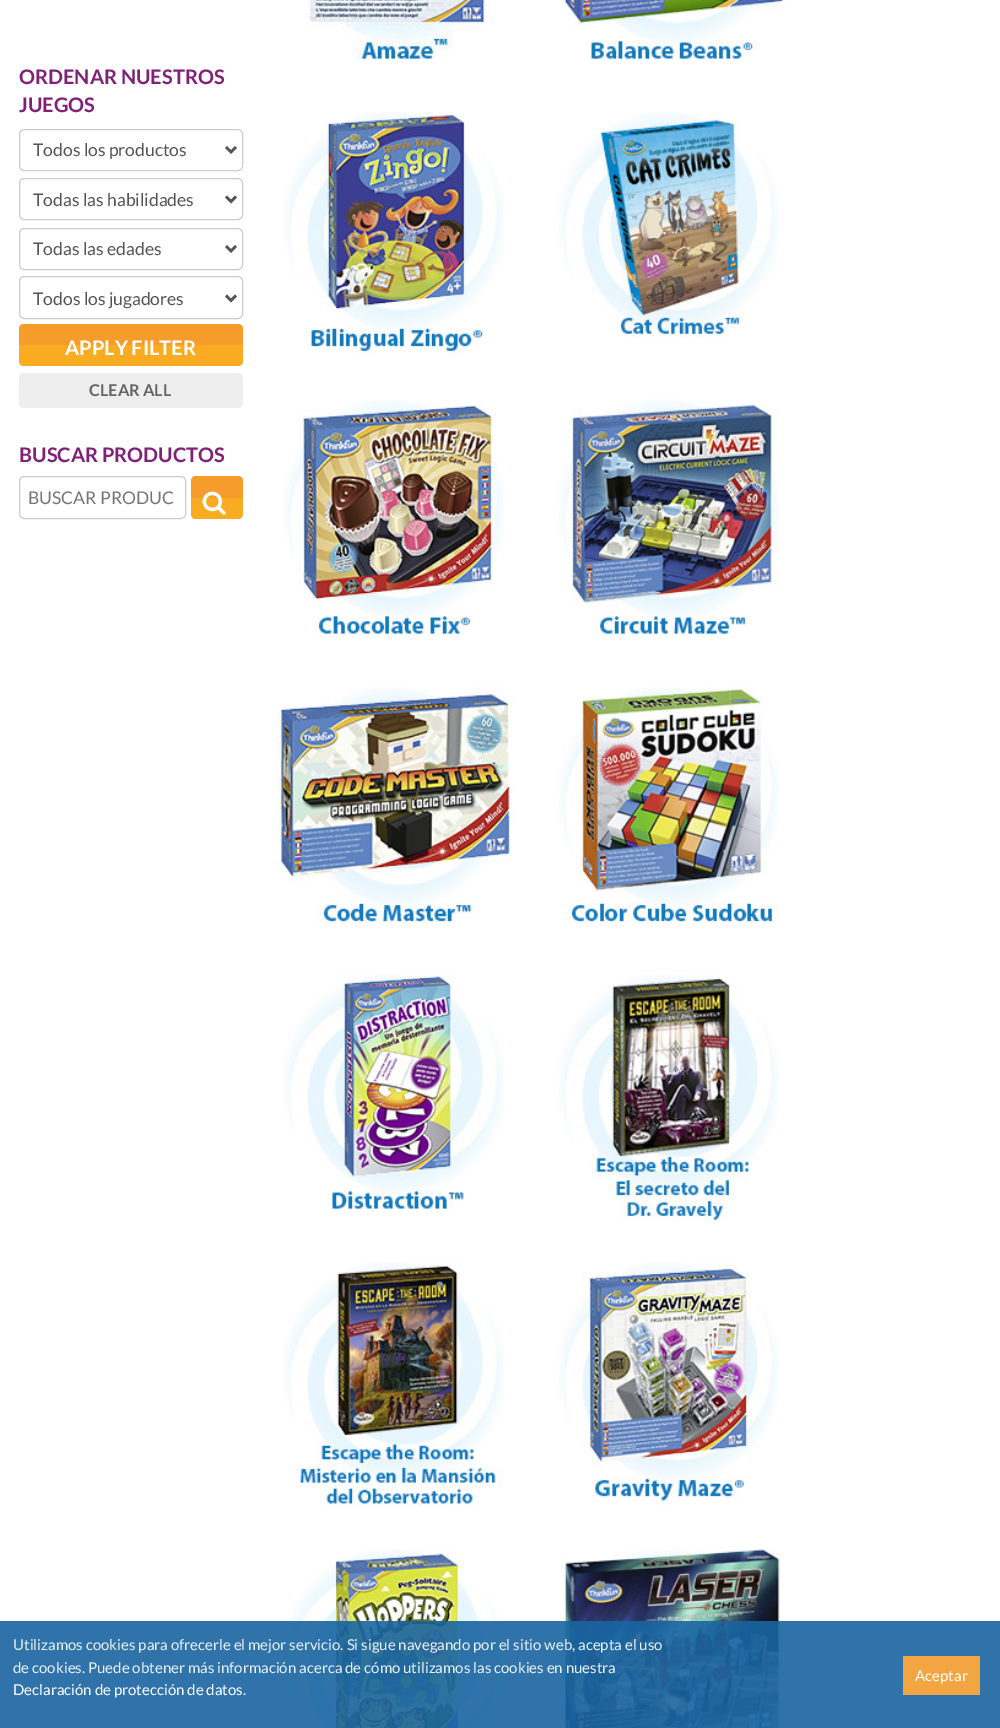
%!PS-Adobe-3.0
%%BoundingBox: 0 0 1000 1728
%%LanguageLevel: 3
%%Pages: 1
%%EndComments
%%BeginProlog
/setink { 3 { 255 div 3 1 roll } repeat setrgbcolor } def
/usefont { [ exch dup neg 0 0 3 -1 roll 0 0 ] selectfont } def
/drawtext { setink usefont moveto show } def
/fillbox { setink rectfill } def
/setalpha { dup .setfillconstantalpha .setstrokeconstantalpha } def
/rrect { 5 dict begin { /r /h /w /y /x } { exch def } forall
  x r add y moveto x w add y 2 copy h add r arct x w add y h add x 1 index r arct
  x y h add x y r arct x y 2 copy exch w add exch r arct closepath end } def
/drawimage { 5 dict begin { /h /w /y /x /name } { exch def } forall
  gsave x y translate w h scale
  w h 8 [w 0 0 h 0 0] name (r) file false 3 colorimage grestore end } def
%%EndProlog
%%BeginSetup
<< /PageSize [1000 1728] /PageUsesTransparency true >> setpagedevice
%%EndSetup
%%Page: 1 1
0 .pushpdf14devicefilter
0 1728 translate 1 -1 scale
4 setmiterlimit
0 0 1000 1728 255 255 255 fillbox
(ORDENAR NUESTROS) 19 84 /Lato-Bold 20 128 33 119 drawtext
(JUEGOS) 19 112 /Lato-Bold 20 128 33 119 drawtext
204 204 204 setink
19.5 129.5 223 41 4.5 rrect stroke
85 85 85 setink
2.5 setlinewidth
226 147 moveto 231 152 lineto 236 147 lineto stroke
(Todos los productos) 33 156 /Lato-Regular 17.5 85 85 85 drawtext
204 204 204 setink
1 setlinewidth
19.5 178.5 223 41 4.5 rrect stroke
85 85 85 setink
2.5 setlinewidth
226 196.5 moveto 231 201.5 lineto 236 196.5 lineto stroke
(Todas las habilidades) 33 206 /Lato-Regular 17.5 85 85 85 drawtext
204 204 204 setink
1 setlinewidth
19.5 228.5 223 41 4.5 rrect stroke
85 85 85 setink
2.5 setlinewidth
226 246 moveto 231 251 lineto 236 246 lineto stroke
(Todas las edades) 33 255 /Lato-Regular 17.5 85 85 85 drawtext
204 204 204 setink
1 setlinewidth
19.5 276.5 223 42 4.5 rrect stroke
85 85 85 setink
2.5 setlinewidth
226 295.5 moveto 231 300.5 lineto 236 295.5 lineto stroke
(Todos los jugadores) 33 305 /Lato-Regular 17.5 85 85 85 drawtext
245 156 43 setink
24 324 moveto 238 324 lineto 241 324 243 326 243 329 curveto 243 345 lineto 19 345 lineto 19 329 lineto 19 326 21 324 24 324 curveto closepath fill
249 172 33 setink
19 345 moveto 243 345 lineto 243 361 lineto 243 364 241 366 238 366 curveto 24 366 lineto 21 366 19 364 19 361 curveto closepath fill
(APPLY FILTER) 65 355 /Lato-Bold 20 255 255 255 drawtext
238 238 238 setink
19 373 224 35 5 rrect fill
(CLEAR ALL) 89 396 /Lato-Bold 16.25 102 102 102 drawtext
(BUSCAR PRODUCTOS) 19 462 /Lato-Bold 20 128 33 119 drawtext
204 204 204 setink
1 setlinewidth
19.5 476.5 166 42 4.5 rrect stroke
(BUSCAR PRODUC) 28 504 /Lato-Regular 17.5 117 117 117 drawtext
245 156 43 setink
196 476 moveto 238 476 lineto 241 476 243 478 243 481 curveto 243 498 lineto 191 498 lineto 191 481 lineto 191 478 193 476 196 476 curveto closepath fill
249 172 33 setink
191 498 moveto 243 498 lineto 243 514 lineto 243 517 241 519 238 519 curveto 196 519 lineto 193 519 191 517 191 514 curveto closepath fill
(assets/img1.rgb) 202 491 24 24 drawimage
(assets/img2.rgb) 307 0 179 60 drawimage
(assets/img3.rgb) 562 0 226 60 drawimage
(assets/img4.rgb) 283 112 221 245 drawimage
(assets/img5.rgb) 558 112 221 226 drawimage
(assets/img6.rgb) 283 400 221 235 drawimage
(assets/img7.rgb) 558 399 221 236 drawimage
(assets/img8.rgb) 277 687 236 236 drawimage
(assets/img9.rgb) 558 687 221 236 drawimage
(assets/img10.rgb) 283 974 221 236 drawimage
(assets/img11.rgb) 558 974 221 247 drawimage
(assets/img12.rgb) 283 1262 221 245 drawimage
(assets/img13.rgb) 558 1262 221 245 drawimage
(assets/img14.rgb) 283 1549 221 179 drawimage
(assets/img15.rgb) 558 1549 223 179 drawimage
0.9 setalpha
0 1621 1000 107 24 100 161 fillbox
1 setalpha
(Utilizamos cookies para ofrecerle el mejor servicio. Si sigue navegando por el sitio web, acepta el uso) 13 1650 /Lato-Regular 15 234 241 246 drawtext
(de cookies. Puede obtener más información acerca de cómo utilizamos las cookies en nuestra) 13 1673 /Lato-Regular 15 234 241 246 drawtext
(Declaración de protección de datos.) 13 1695 /Lato-Regular 15 255 255 255 drawtext
903 1656 77 39 242 165 65 fillbox
(Aceptar) 915 1681 /Lato-Regular 15 255 255 255 drawtext
.poppdf14devicefilter showpage
%%EOF
